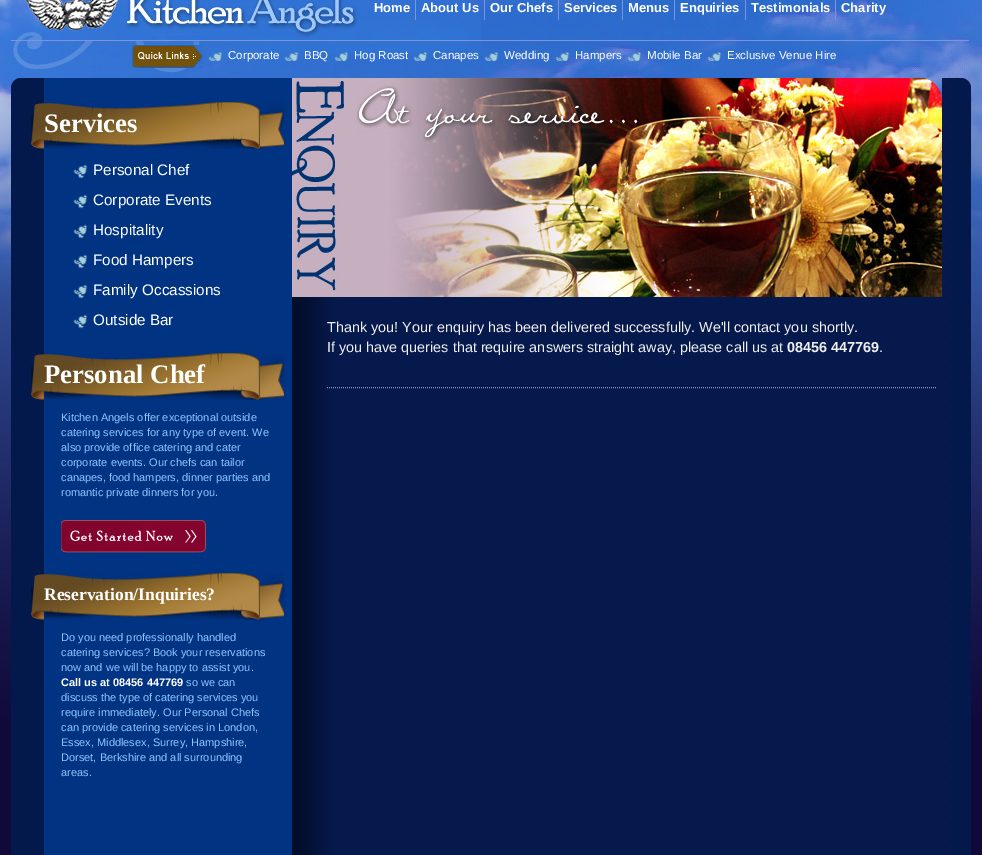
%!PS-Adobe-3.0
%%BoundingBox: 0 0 982 855
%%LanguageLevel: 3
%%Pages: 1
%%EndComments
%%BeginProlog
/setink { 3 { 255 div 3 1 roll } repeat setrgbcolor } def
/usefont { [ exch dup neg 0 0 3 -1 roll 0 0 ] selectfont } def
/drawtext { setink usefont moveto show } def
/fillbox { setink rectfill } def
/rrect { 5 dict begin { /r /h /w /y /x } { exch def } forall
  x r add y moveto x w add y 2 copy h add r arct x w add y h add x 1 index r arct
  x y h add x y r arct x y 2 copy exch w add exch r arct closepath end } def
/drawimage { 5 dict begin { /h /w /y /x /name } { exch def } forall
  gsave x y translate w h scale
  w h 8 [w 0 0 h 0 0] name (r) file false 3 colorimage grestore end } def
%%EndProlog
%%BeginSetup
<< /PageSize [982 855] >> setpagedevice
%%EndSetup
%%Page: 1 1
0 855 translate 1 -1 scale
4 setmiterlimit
0 0 982 855 16 9 57 fillbox
(assets/img1.rgb) 0 0 982 715 drawimage
(assets/img2.rgb) 11 0 470 78 drawimage
(assets/img3.rgb) 481 0 488 78 drawimage
(Home) 374 12 /LiberationSans-Bold 13 255 255 255 drawtext
415 0 1 20 124 148 218 fillbox
(About Us) 421 12 /LiberationSans-Bold 13 255 255 255 drawtext
484 0 1 20 124 148 218 fillbox
(Our Chefs) 490 12 /LiberationSans-Bold 13 255 255 255 drawtext
558 0 1 20 124 148 218 fillbox
(Services) 564 12 /LiberationSans-Bold 13 255 255 255 drawtext
622 0 1 20 124 148 218 fillbox
(Menus) 628 12 /LiberationSans-Bold 13 255 255 255 drawtext
674 0 1 20 124 148 218 fillbox
(Enquiries) 680 12 /LiberationSans-Bold 13 255 255 255 drawtext
745 0 1 20 124 148 218 fillbox
(Testimonials) 751 12 /LiberationSans-Bold 13 255 255 255 drawtext
835 0 1 20 124 148 218 fillbox
(Charity) 841 12 /LiberationSans-Bold 13 255 255 255 drawtext
(assets/img4.rgb) 132 45 71 23 drawimage
(assets/img5.rgb) 208 51 15 10 drawimage
(Corporate) 228 59 /LiberationSans-Regular 11.5 255 255 255 drawtext
(assets/img6.rgb) 284 52 15 9 drawimage
(BBQ) 304 59 /LiberationSans-Regular 11.5 255 255 255 drawtext
(assets/img7.rgb) 334 52 15 9 drawimage
(Hog Roast) 354 59 /LiberationSans-Regular 11.5 255 255 255 drawtext
(assets/img8.rgb) 413 51 15 10 drawimage
(Canapes) 433 59 /LiberationSans-Regular 11.5 255 255 255 drawtext
(assets/img9.rgb) 484 52 15 9 drawimage
(Wedding) 504 59 /LiberationSans-Regular 11.5 255 255 255 drawtext
(assets/img10.rgb) 555 52 15 9 drawimage
(Hampers) 575 59 /LiberationSans-Regular 11.5 255 255 255 drawtext
(assets/img11.rgb) 627 52 14 9 drawimage
(Mobile Bar) 647 59 /LiberationSans-Regular 11.5 255 255 255 drawtext
(assets/img12.rgb) 707 51 14 10 drawimage
(Exclusive Venue Hire) 727 59 /LiberationSans-Regular 11.5 255 255 255 drawtext
4 25 75 setink
11 78 960 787 10 rrect fill
(assets/img13.rgb) 44 78 907 777 drawimage
(assets/img14.rgb) 31 102 253 47 drawimage
(Services) 44 132 /LiberationSerif-Bold 26.75 255 255 255 drawtext
(assets/img15.rgb) 73 164 15 15 drawimage
(Personal Chef) 93 175 /LiberationSans-Regular 15.25 255 255 255 drawtext
(assets/img15.rgb) 73 194 15 15 drawimage
(Corporate Events) 93 205 /LiberationSans-Regular 15.25 255 255 255 drawtext
(assets/img15.rgb) 73 224 15 15 drawimage
(Hospitality) 93 235 /LiberationSans-Regular 15.25 255 255 255 drawtext
(assets/img15.rgb) 73 254 15 15 drawimage
(Food Hampers) 93 265 /LiberationSans-Regular 15.25 255 255 255 drawtext
(assets/img15.rgb) 73 284 15 15 drawimage
(Family Occassions) 93 295 /LiberationSans-Regular 15.25 255 255 255 drawtext
(assets/img15.rgb) 73 314 15 15 drawimage
(Outside Bar) 93 325 /LiberationSans-Regular 15.25 255 255 255 drawtext
(assets/img14.rgb) 31 353 253 47 drawimage
(Personal Chef) 44 383 /LiberationSerif-Bold 26.75 255 255 255 drawtext
(Kitchen Angels offer exceptional outside) 61 421 /LiberationSans-Regular 11 143 197 255 drawtext
(catering services for any type of event. We) 61 436 /LiberationSans-Regular 11 143 197 255 drawtext
(also provide office catering and cater) 61 451 /LiberationSans-Regular 11 143 197 255 drawtext
(corporate events. Our chefs can tailor) 61 466 /LiberationSans-Regular 11 143 197 255 drawtext
(canapes, food hampers, dinner parties and) 61 481 /LiberationSans-Regular 11 143 197 255 drawtext
(romantic private dinners for you.) 61 496 /LiberationSans-Regular 11 143 197 255 drawtext
(assets/img16.rgb) 61 520 150 33 drawimage
(assets/img14.rgb) 31 573 253 47 drawimage
(Reservation/Inquiries?) 44 600 /LiberationSerif-Bold 17.5 255 255 255 drawtext
(Do you need professionally handled) 61 641 /LiberationSans-Regular 11 143 197 255 drawtext
(catering services? Book your reservations) 61 656 /LiberationSans-Regular 11 143 197 255 drawtext
(now and we will be happy to assist you.) 61 671 /LiberationSans-Regular 11 143 197 255 drawtext
(Call us at 08456 447769) 61 686 /LiberationSans-Bold 11 255 255 255 drawtext
(so we can) 186 686 /LiberationSans-Regular 11 143 197 255 drawtext
(discuss the type of catering services you) 61 701 /LiberationSans-Regular 11 143 197 255 drawtext
(require immediately. Our Personal Chefs) 61 716 /LiberationSans-Regular 11 143 197 255 drawtext
(can provide catering services in London,) 61 731 /LiberationSans-Regular 11 143 197 255 drawtext
(Essex, Middlesex, Surrey, Hampshire,) 61 746 /LiberationSans-Regular 11 143 197 255 drawtext
(Dorset, Berkshire and all surrounding) 61 761 /LiberationSans-Regular 11 143 197 255 drawtext
(areas.) 61 776 /LiberationSans-Regular 11 143 197 255 drawtext
(assets/img17.rgb) 292 78 650 219 drawimage
125 153 195 setink
[1 1] 0 setdash
327 387.5 moveto 937 387.5 lineto stroke
(Thank you! Your enquiry has been delivered successfully. We'll contact you shortly.) 327 332 /LiberationSans-Regular 14.4 239 239 239 drawtext
(If you have queries that require answers straight away, please call us at) 327 352 /LiberationSans-Regular 14.4 239 239 239 drawtext
(08456 447769) 787 352 /LiberationSans-Bold 14.4 239 239 239 drawtext
(.) 879 352 /LiberationSans-Regular 14.4 239 239 239 drawtext
showpage
%%EOF
